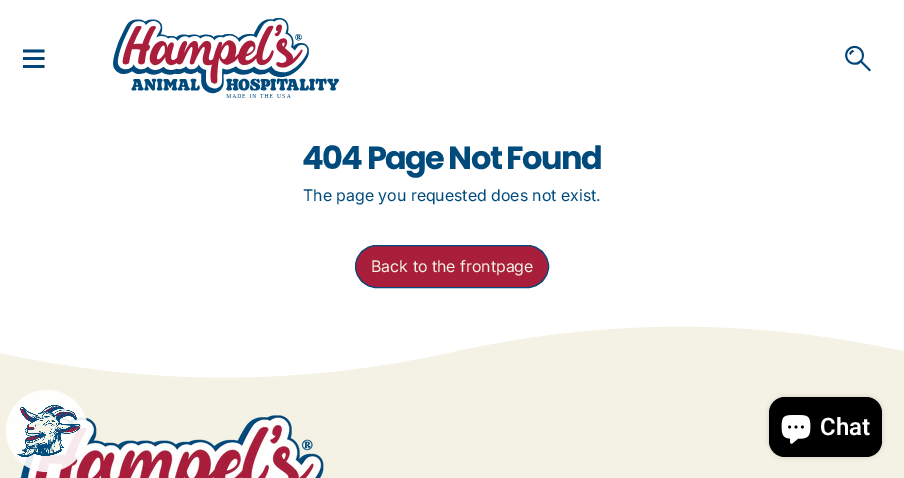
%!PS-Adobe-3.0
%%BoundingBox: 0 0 904 478
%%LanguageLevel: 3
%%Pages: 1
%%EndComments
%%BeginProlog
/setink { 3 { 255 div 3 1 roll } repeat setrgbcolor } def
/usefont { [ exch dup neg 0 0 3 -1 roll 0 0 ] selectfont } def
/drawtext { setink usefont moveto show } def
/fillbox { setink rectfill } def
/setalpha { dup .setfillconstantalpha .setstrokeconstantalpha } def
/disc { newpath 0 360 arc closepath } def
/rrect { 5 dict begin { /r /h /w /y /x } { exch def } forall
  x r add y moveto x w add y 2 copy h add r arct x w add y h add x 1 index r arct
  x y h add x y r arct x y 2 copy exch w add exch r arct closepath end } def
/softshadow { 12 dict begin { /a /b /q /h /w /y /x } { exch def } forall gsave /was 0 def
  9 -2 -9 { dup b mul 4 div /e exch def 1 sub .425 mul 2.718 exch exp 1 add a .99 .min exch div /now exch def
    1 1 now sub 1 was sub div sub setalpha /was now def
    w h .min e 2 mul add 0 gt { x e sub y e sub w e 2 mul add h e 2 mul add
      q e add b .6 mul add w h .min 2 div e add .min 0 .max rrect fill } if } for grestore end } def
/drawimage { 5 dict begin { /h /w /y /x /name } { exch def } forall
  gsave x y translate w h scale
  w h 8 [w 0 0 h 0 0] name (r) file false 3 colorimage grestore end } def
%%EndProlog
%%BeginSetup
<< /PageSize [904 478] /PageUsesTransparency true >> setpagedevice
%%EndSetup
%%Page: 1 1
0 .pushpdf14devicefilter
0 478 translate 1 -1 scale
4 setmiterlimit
0 0 904 478 255 255 255 fillbox
0 68 120 setink
2.8 setlinewidth
44.5 66.5 moveto 23 66.5 lineto 44.5 58.5 moveto 23 58.5 lineto 44.5 51 moveto 23 51 lineto stroke
(assets/img1.rgb) 113 18 226 80 drawimage
(assets/img2.rgb) 845 45 26 27 drawimage
/Poppins-Bold 32 usefont
0 74 124 setink
302 169 moveto -1.6 0 (404 Page Not Found) ashow
(The page you requested does not exist.) 303 201 /Inter-Regular 16 0 74 124 drawtext
168 30 59 setink
355.5 245.5 193 42 21 rrect gsave fill grestore
0 74 124 setink
1 setlinewidth
stroke
(Back to the frontpage) 371 272 /Inter-Regular 16 244 242 228 drawtext
0 326 904 152 244 242 228 fillbox
gsave
0 320 904 61 rectclip
255 255 255 setink
452 352 moveto 604 318 756 318 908 352 curveto 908 318 lineto -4 318 lineto -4 352 lineto 148 386 300 386 452 352 curveto closepath fill
grestore
(assets/img3.rgb) 20 415 304 63 drawimage
0.9 setalpha
255 255 255 setink
47 431 41 disc fill
1 setalpha
(assets/img4.rgb) 17 405 64 52 drawimage
0 0 0 setink
769 397 113 60 16 2.5 0.15 softshadow
769 397 113 60 16 rrect fill
(assets/img5.rgb) 781 415 30 29 drawimage
(Chat) 820 435 /Roboto-SemiBold 24 255 255 255 drawtext
.poppdf14devicefilter showpage
%%EOF
